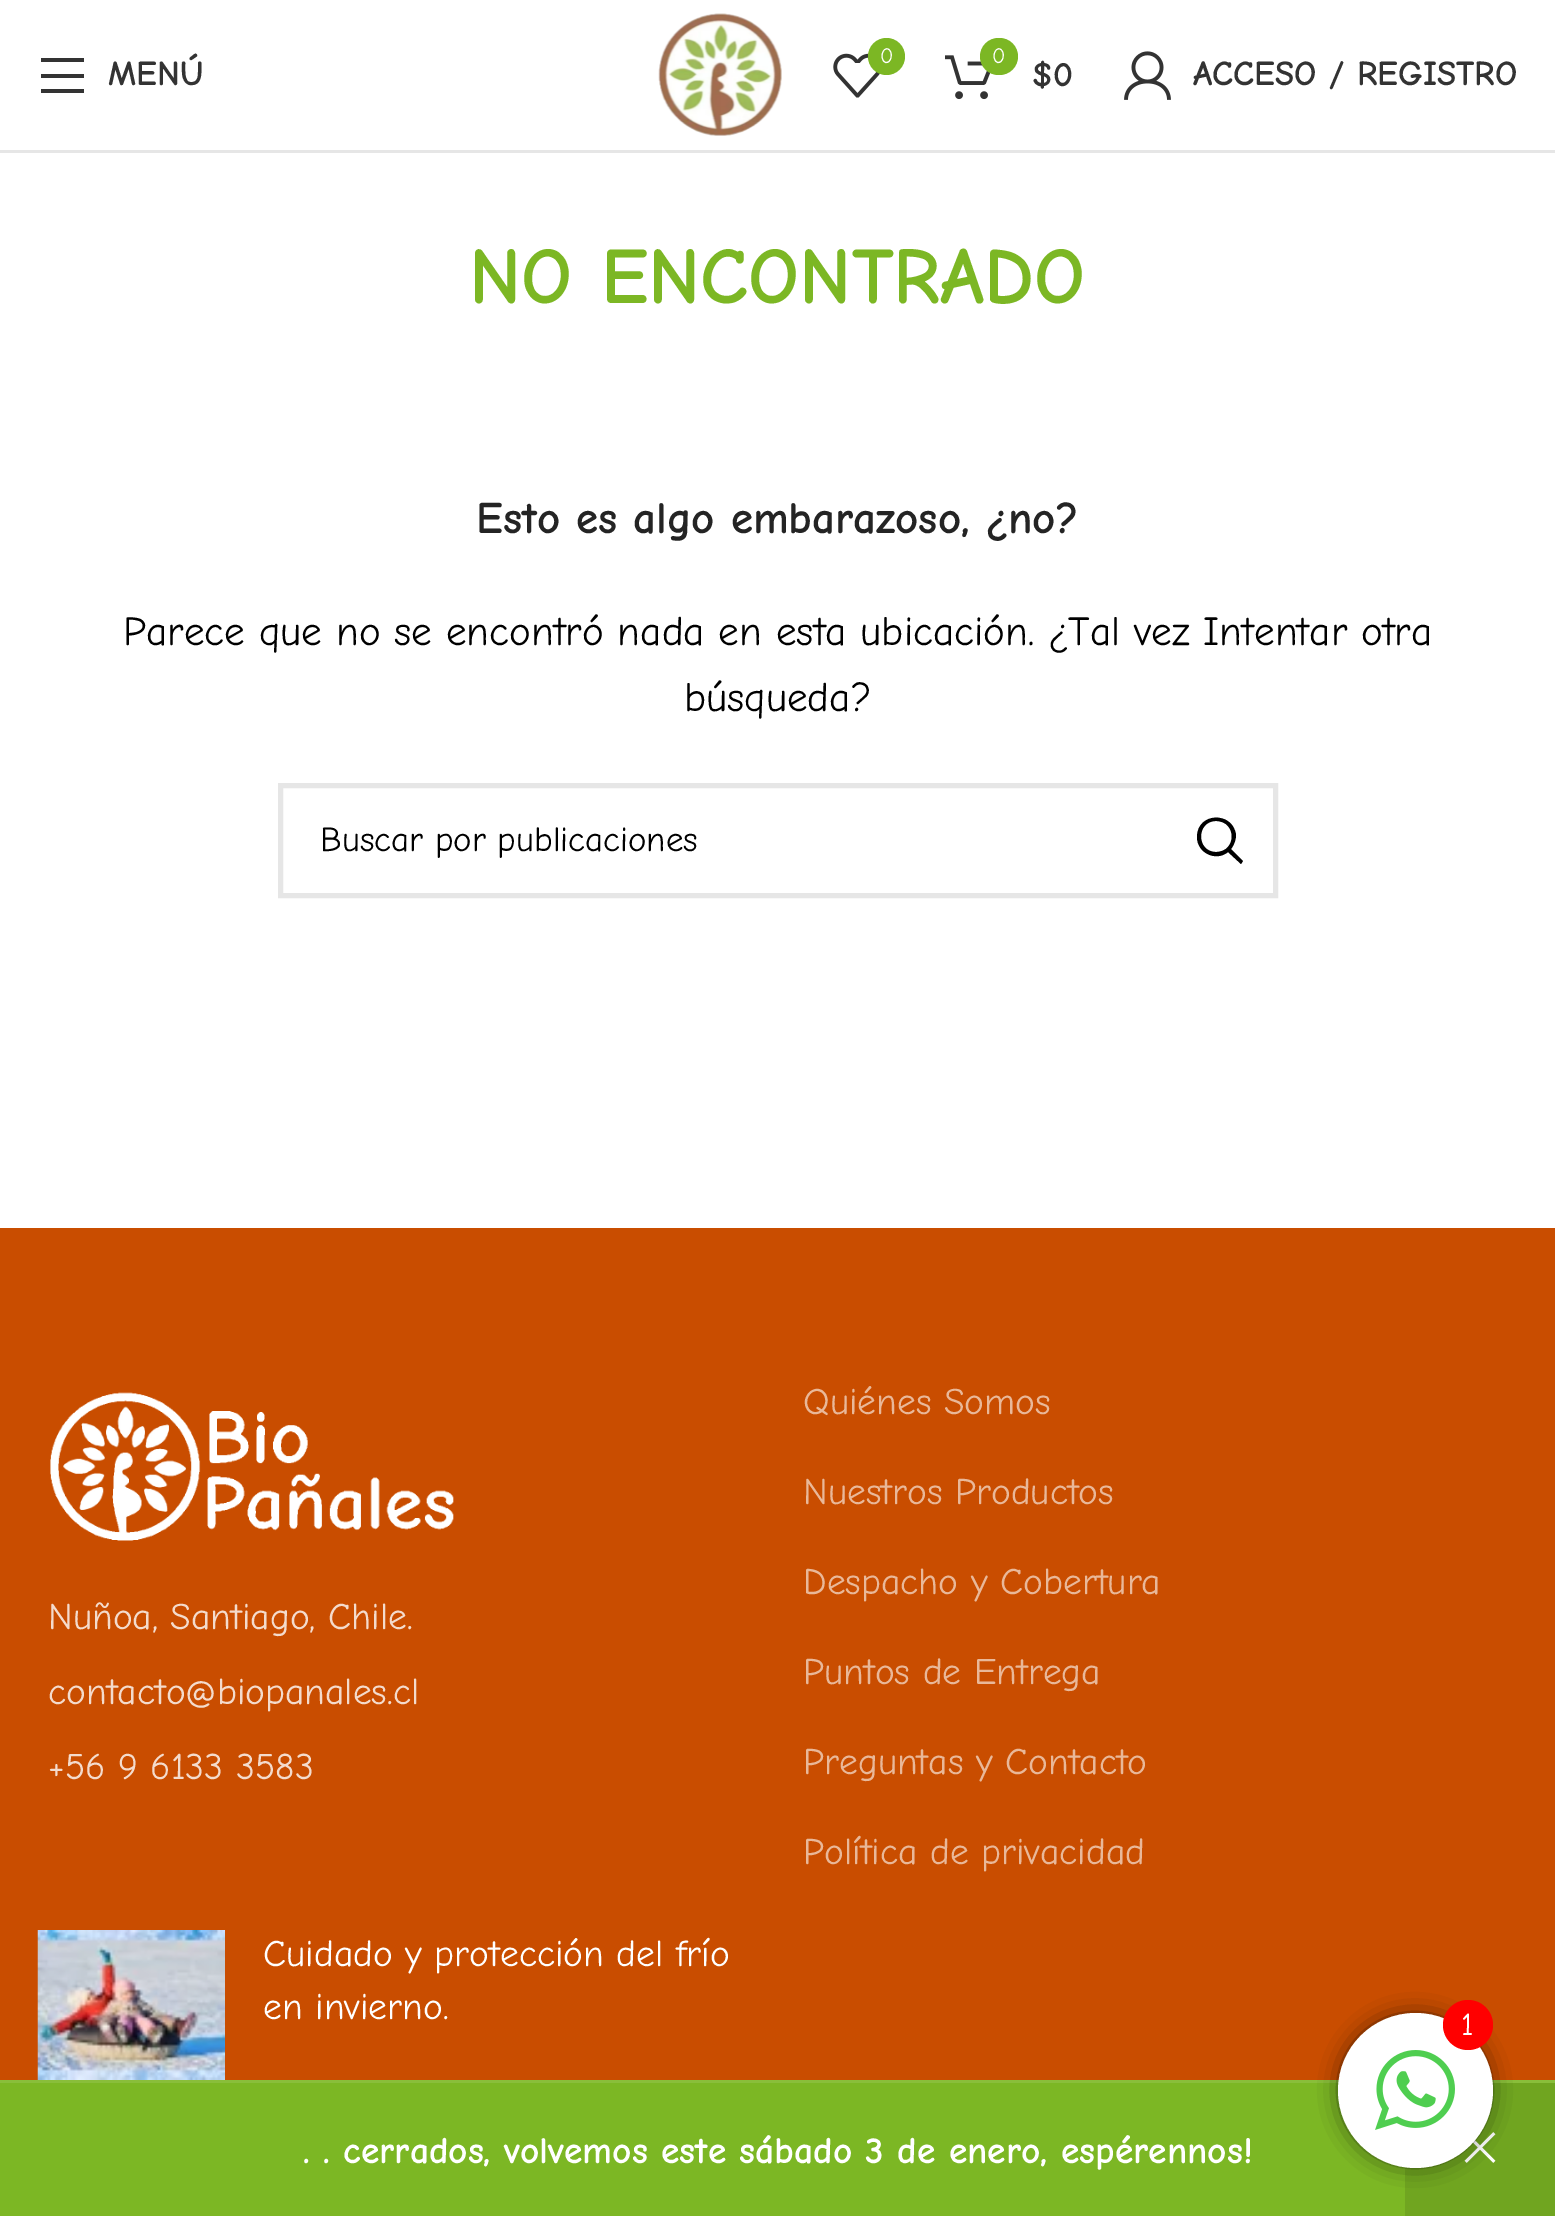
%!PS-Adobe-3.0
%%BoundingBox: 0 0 1555 2216
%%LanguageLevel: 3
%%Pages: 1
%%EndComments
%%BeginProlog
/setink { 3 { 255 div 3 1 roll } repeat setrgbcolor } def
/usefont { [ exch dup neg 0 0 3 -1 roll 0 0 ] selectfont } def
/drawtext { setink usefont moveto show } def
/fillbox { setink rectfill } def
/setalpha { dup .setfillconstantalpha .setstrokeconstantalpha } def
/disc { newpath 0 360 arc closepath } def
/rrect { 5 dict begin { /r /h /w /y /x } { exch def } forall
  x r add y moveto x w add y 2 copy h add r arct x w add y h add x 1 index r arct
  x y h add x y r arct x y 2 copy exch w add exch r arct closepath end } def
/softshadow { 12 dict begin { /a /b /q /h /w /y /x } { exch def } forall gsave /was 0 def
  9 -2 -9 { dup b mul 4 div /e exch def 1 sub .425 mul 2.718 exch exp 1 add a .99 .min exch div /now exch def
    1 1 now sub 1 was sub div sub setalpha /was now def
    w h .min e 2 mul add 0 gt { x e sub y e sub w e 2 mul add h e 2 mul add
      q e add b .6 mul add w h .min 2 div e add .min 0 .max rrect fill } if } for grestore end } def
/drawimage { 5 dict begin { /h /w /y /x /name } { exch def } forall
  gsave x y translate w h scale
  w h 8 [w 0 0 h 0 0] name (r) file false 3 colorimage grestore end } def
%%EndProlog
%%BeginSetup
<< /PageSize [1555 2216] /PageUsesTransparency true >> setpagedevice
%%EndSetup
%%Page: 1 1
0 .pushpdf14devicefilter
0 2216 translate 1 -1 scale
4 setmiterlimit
0 0 1555 2216 255 255 255 fillbox
0 150 1555 3 230 230 230 fillbox
51 51 51 setink
41 62 moveto 84 62 lineto 84 58 lineto 41 58 lineto closepath 41 78 moveto 84 78 lineto 84 74 lineto 41 74 lineto closepath 41 93 moveto 84 93 lineto 84 89 lineto 41 89 lineto closepath fill
(MENÚ) 108 85 /ComicNeue-Bold 35 51 51 51 drawtext
(assets/img1.rgb) 658 13 124 123 drawimage
(assets/img2.rgb) 833 53 48 45 drawimage
124 183 36 setink
886.5 56.5 18.5 disc fill
(0) 880 63 /ComicNeue-Regular 22 255 255 255 drawtext
(assets/img3.rgb) 945 55 46 45 drawimage
124 183 36 setink
980 38 38 37 18.5 rrect fill
(0) 992 63 /ComicNeue-Regular 22 255 255 255 drawtext
($0) 1032 86 /ComicNeue-Bold 35 51 51 51 drawtext
(assets/img4.rgb) 1124 51 47 49 drawimage
(ACCESO / REGISTRO) 1193 85 /ComicNeue-Bold 35 51 51 51 drawtext
(NO ENCONTRADO) 469 303 /ComicNeue-Bold 80 124 183 36 drawtext
(Esto es algo embarazoso, ¿no?) 476 533 /ComicNeue-Bold 45 36 36 36 drawtext
(Parece que no se encontró nada en esta ubicación. ¿Tal vez Intentar otra) 123 645 /ComicNeue-Regular 41.25 0 0 0 drawtext
(búsqueda?) 684 711 /ComicNeue-Regular 41.25 0 0 0 drawtext
230 230 230 setink
5 setlinewidth
280.5 785.5 995 110 rectstroke
(Buscar por publicaciones) 320 851 /ComicNeue-Regular 35 0 0 0 drawtext
1197 837 moveto 1197 853 1216 862 1228 852 curveto 1241 864 lineto 1243 861 lineto 1231 849 lineto 1234 845 1236 840 1236 835 curveto 1233 811 1197 812 1197 837 curveto closepath 1216 852 moveto 1196 852 1196 821 1216 821 curveto 1237 821 1237 852 1216 852 curveto closepath fill
0 1228 1555 852 201 77 0 fillbox
(assets/img5.rgb) 50 1392 404 149 drawimage
(Nuñoa, Santiago, Chile.) 48 1629 /ComicNeue-Regular 37.5 244 219 204 drawtext
(contacto@biopanales.cl) 48 1704 /ComicNeue-Regular 37.5 244 219 204 drawtext
(+56 9 6133 3583) 48 1779 /ComicNeue-Regular 37.5 244 219 204 drawtext
(Quiénes Somos) 803 1414 /ComicNeue-Regular 37.5 233 184 153 drawtext
(Nuestros Productos) 803 1504 /ComicNeue-Regular 37.5 233 184 153 drawtext
(Despacho y Cobertura) 803 1594 /ComicNeue-Regular 37.5 233 184 153 drawtext
(Puntos de Entrega) 803 1684 /ComicNeue-Regular 37.5 233 184 153 drawtext
(Preguntas y Contacto) 803 1774 /ComicNeue-Regular 37.5 233 184 153 drawtext
(Política de privacidad) 803 1864 /ComicNeue-Regular 37.5 233 184 153 drawtext
(assets/img6.rgb) 37 1930 188 150 drawimage
(Cuidado y protección del frío) 263 1966 /ComicNeue-Regular 37.5 255 255 255 drawtext
(en invierno.) 263 2019 /ComicNeue-Regular 37.5 255 255 255 drawtext
0 2083 1405 133 124 183 36 fillbox
0 2080 1555 3 137 190 58 fillbox
1405 2083 150 133 112 165 32 fillbox
(assets/img8.rgb) 1464 2132 32 31 drawimage
0 0 0 setink
1345 2020 140 140 70 12.5 1 softshadow
255 255 255 setink
1415.5 2090.5 77.5 disc fill
255 0 0 setink
1468 2025 25 disc fill
(1) 1461 2035 /ComicNeue-Regular 32 255 255 255 drawtext
(assets/img7.rgb) 1375 2050 80 80 drawimage
(. . cerrados, volvemos este sábado 3 de enero, espérennos!) 303 2163 /ComicNeue-Bold 37.5 255 255 255 drawtext
.poppdf14devicefilter showpage
%%EOF
